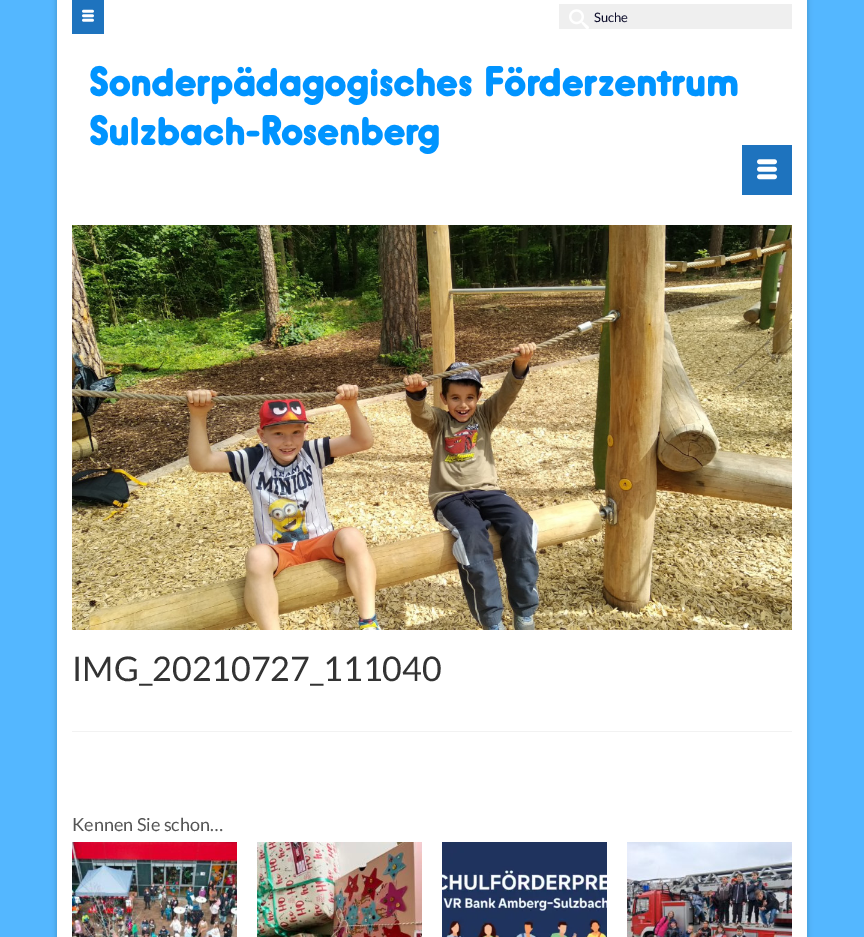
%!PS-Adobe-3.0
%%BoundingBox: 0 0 864 937
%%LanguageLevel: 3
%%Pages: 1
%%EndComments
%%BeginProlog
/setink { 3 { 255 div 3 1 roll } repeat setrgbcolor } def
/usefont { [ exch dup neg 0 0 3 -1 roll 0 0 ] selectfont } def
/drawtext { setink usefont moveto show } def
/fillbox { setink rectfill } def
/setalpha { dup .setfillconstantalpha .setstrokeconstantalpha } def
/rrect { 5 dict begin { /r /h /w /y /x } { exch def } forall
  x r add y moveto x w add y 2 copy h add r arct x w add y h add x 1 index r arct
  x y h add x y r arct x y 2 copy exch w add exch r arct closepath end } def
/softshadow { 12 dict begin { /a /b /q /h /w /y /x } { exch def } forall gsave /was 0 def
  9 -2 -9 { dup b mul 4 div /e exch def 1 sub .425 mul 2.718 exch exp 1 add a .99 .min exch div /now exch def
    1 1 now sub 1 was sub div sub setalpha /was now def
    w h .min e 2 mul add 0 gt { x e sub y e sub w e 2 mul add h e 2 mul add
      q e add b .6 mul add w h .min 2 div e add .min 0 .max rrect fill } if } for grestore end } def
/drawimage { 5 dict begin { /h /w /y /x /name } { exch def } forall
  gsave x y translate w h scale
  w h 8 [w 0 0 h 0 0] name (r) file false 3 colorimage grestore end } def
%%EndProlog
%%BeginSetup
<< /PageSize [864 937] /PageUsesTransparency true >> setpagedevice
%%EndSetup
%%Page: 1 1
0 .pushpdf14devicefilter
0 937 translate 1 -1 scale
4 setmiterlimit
0 0 864 937 84 183 255 fillbox
0 0 0 setink
56 -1 752 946 0 2.5 0.16 softshadow
57 0 750 937 255 255 255 fillbox
72 0 32 34 30 115 190 fillbox
(assets/img1.rgb) 82 9 12 13 drawimage
559 4 233 25 239 239 239 fillbox
(assets/img2.rgb) 569 9 20 20 drawimage
(Suche) 594 22 /Lato-Regular 13 10 10 40 drawtext
(assets/img3.rgb) 90 65 648 89 drawimage
742 145 50 50 30 115 190 fillbox
(assets/img4.rgb) 757 159 20 21 drawimage
(assets/img5.rgb) 72 225 720 405 drawimage
(IMG_20210727_111040) 72 681 /Lato-Regular 34 51 51 51 drawtext
72 731 720 1 242 242 242 fillbox
(Kennen Sie schon…) 72 831 /Lato-Regular 18 85 85 85 drawtext
(assets/img6.rgb) 72 842 165 95 drawimage
(assets/img7.rgb) 257 842 165 95 drawimage
(assets/img8.rgb) 442 842 165 95 drawimage
(assets/img9.rgb) 627 842 165 95 drawimage
.poppdf14devicefilter showpage
%%EOF
